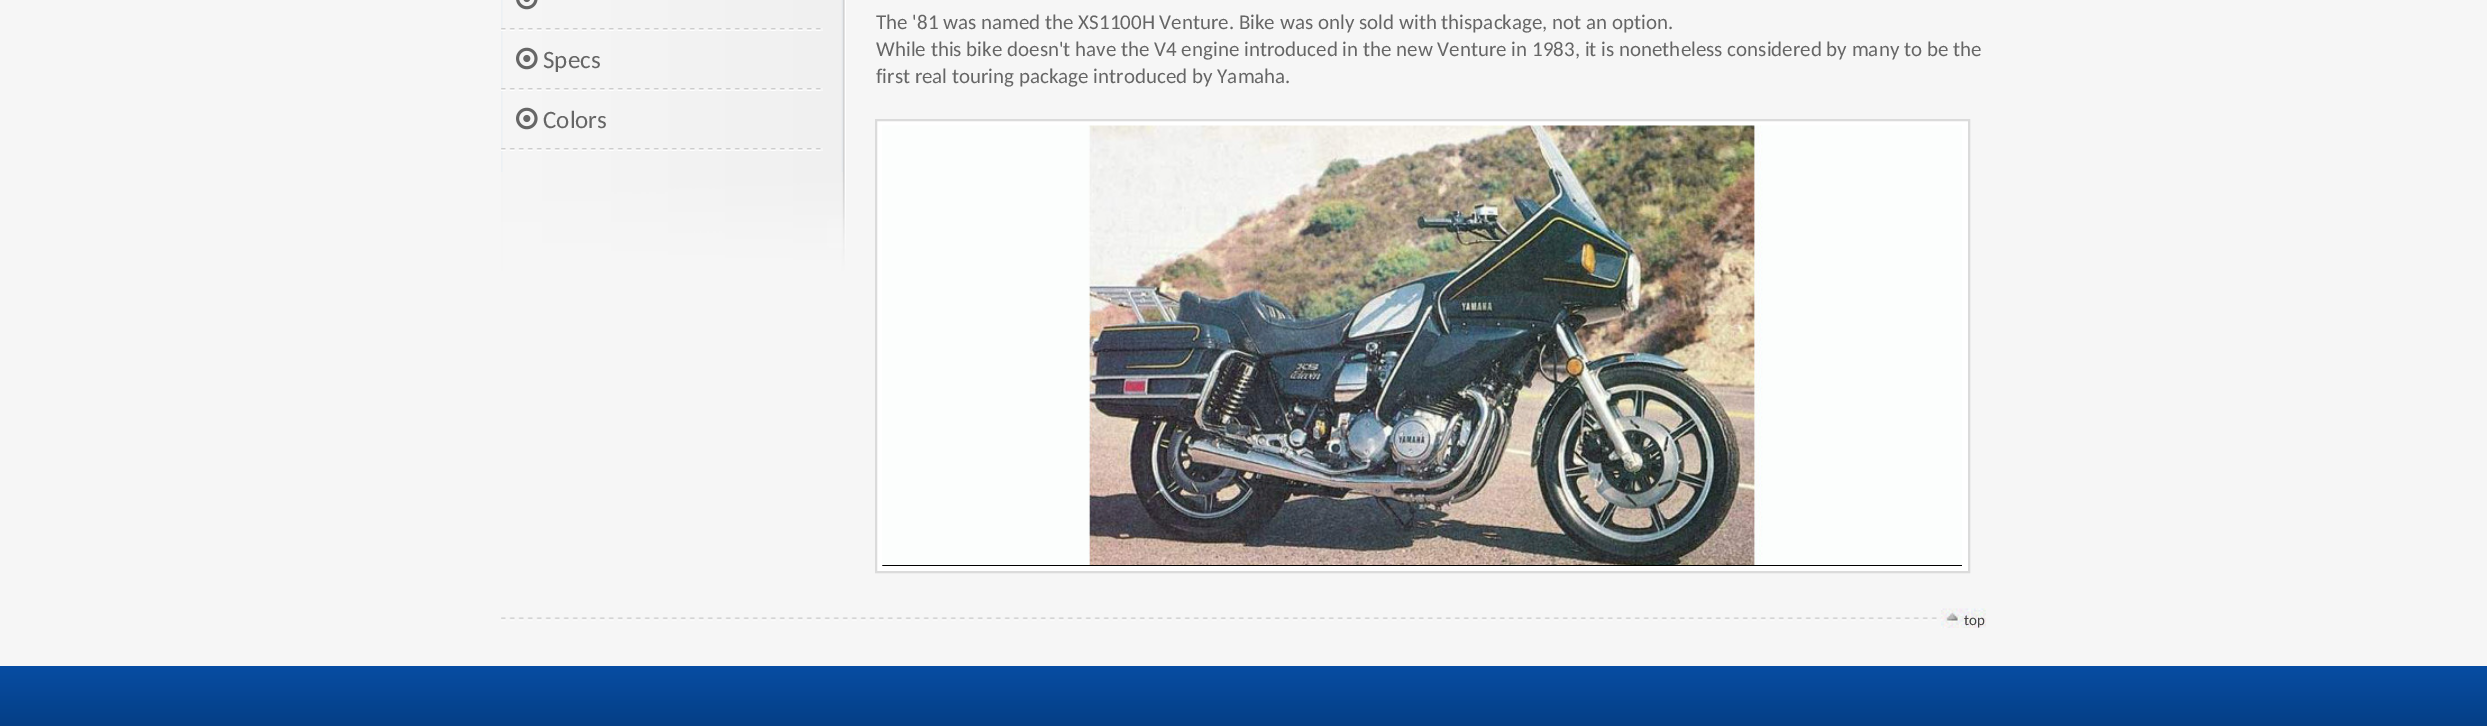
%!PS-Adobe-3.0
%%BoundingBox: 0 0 2487 726
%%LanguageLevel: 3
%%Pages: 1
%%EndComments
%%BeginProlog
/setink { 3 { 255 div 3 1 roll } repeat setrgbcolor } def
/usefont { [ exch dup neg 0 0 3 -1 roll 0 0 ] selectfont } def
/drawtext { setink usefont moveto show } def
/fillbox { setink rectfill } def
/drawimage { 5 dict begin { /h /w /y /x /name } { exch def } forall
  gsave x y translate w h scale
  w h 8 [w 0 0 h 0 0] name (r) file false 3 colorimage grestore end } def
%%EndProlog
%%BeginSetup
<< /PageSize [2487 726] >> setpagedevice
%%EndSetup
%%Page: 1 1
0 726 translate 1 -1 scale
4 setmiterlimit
0 0 2487 726 246 246 246 fillbox
(assets/img1.rgb) 501 0 345 172 drawimage
(assets/img2.rgb) 501 28 322 3 drawimage
(assets/img3.rgb) 516 0 22 10 drawimage
(assets/img4.rgb) 501 88 322 3 drawimage
(assets/img5.rgb) 516 47 22 23 drawimage
(Specs) 543 68 /Carlito-Regular 25 102 102 102 drawtext
(assets/img6.rgb) 501 148 322 3 drawimage
(assets/img5.rgb) 516 107 22 23 drawimage
(Colors) 543 128 /Carlito-Regular 25 102 102 102 drawtext
(assets/img7.rgb) 501 172 345 99 drawimage
(The '81 was named the XS1100H Venture. Bike was only sold with thispackage, not an option.) 876 29 /Carlito-Regular 21 102 102 102 drawtext
(While this bike doesn't have the V4 engine introduced in the new Venture in 1983, it is nonetheless considered by many to be the) 876 56 /Carlito-Regular 21 102 102 102 drawtext
(first real touring package introduced by Yamaha.) 876 83 /Carlito-Regular 21 102 102 102 drawtext
882 565 1080 1 0 0 0 fillbox
255 255 255 setink
6 setlinewidth
879 123 1086 446 rectstroke
(assets/img8.rgb) 882 125 1080 440 drawimage
219 219 219 setink
2 setlinewidth
876 120 1093 452 rectstroke
(assets/img9.rgb) 501 617 1440 4 drawimage
(assets/img10.rgb) 1941 608 45 20 drawimage
(top) 1964 625 /Carlito-Regular 15 69 69 69 drawtext
gsave 0 666 moveto 2487 666 lineto 2487 726 lineto 0 726 lineto closepath clip newpath
<< /ShadingType 2 /ColorSpace /DeviceRGB /Coords [1244 666 1244 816] /Extend [true true] /Function << /FunctionType 2 /Domain [0 1] /C0 [0.027 0.302 0.639] /C1 [0.004 0.161 0.353] /N 1 >> >> shfill grestore
showpage
%%EOF
